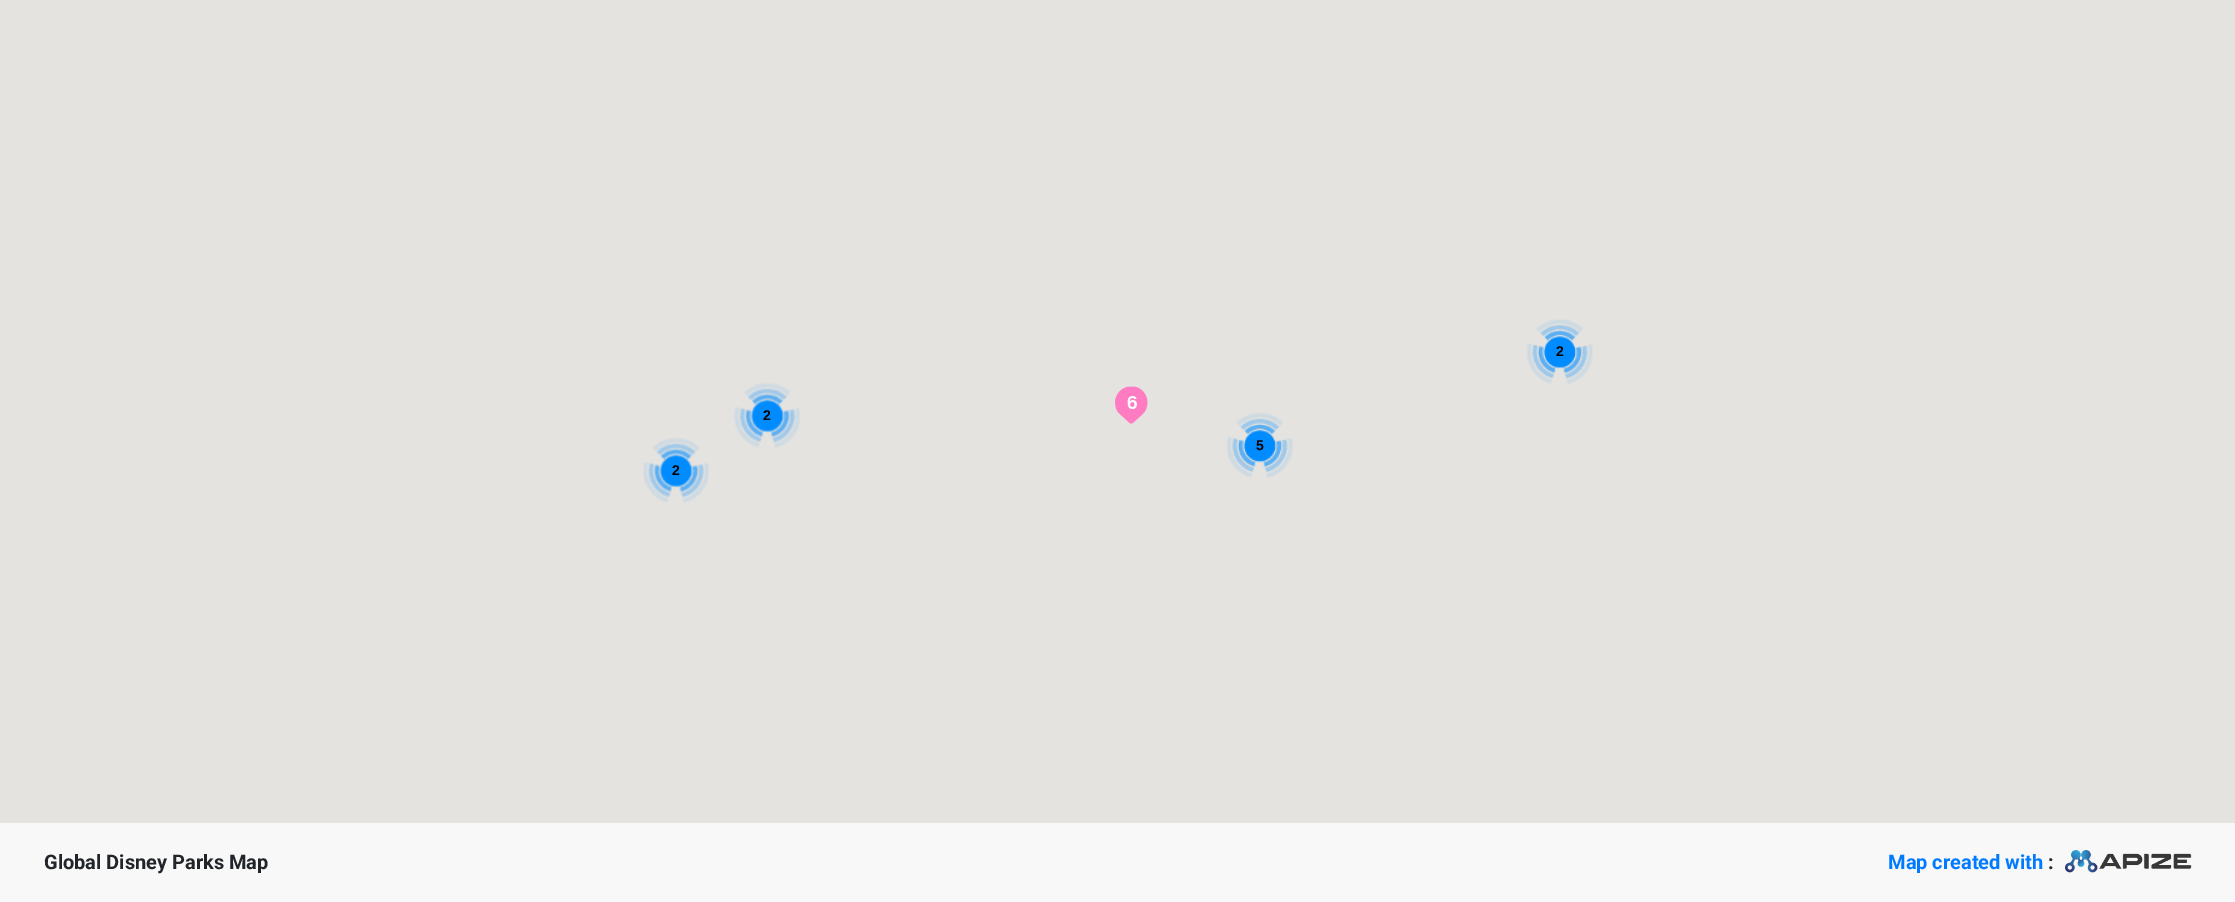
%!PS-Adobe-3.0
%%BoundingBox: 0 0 2235 902
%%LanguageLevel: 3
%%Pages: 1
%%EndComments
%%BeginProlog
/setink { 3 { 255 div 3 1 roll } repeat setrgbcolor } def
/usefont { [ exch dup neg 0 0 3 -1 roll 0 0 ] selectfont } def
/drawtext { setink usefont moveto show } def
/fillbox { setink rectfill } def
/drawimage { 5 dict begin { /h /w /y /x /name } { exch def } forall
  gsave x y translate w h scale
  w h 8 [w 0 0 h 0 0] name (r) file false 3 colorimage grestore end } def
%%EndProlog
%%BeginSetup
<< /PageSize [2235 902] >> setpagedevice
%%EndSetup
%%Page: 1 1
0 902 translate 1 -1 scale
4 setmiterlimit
0 0 2235 902 248 248 248 fillbox
0 0 2235 823 229 227 223 fillbox
(assets/img1.rgb) 1526 319 67 65 drawimage
(2) 1556 356 /LiberationSans-Bold 14 0 0 0 drawtext
(assets/img2.rgb) 734 382 66 66 drawimage
(2) 763 420 /LiberationSans-Bold 14 0 0 0 drawtext
(assets/img3.rgb) 1226 412 67 66 drawimage
(5) 1256 450 /LiberationSans-Bold 14 0 0 0 drawtext
(assets/img4.rgb) 643 437 66 66 drawimage
(2) 672 475 /LiberationSans-Bold 14 0 0 0 drawtext
(assets/img5.rgb) 1115 386 33 38 drawimage
(Global Disney Parks Map) 44 869 /Roboto-Bold 20 33 37 41 drawtext
(Map created with) 1888 869 /Roboto-Bold 20 0 123 255 drawtext
(:) 2048 869 /Roboto-Bold 20 33 37 41 drawtext
(assets/img6.rgb) 2065 850 127 23 drawimage
showpage
%%EOF
